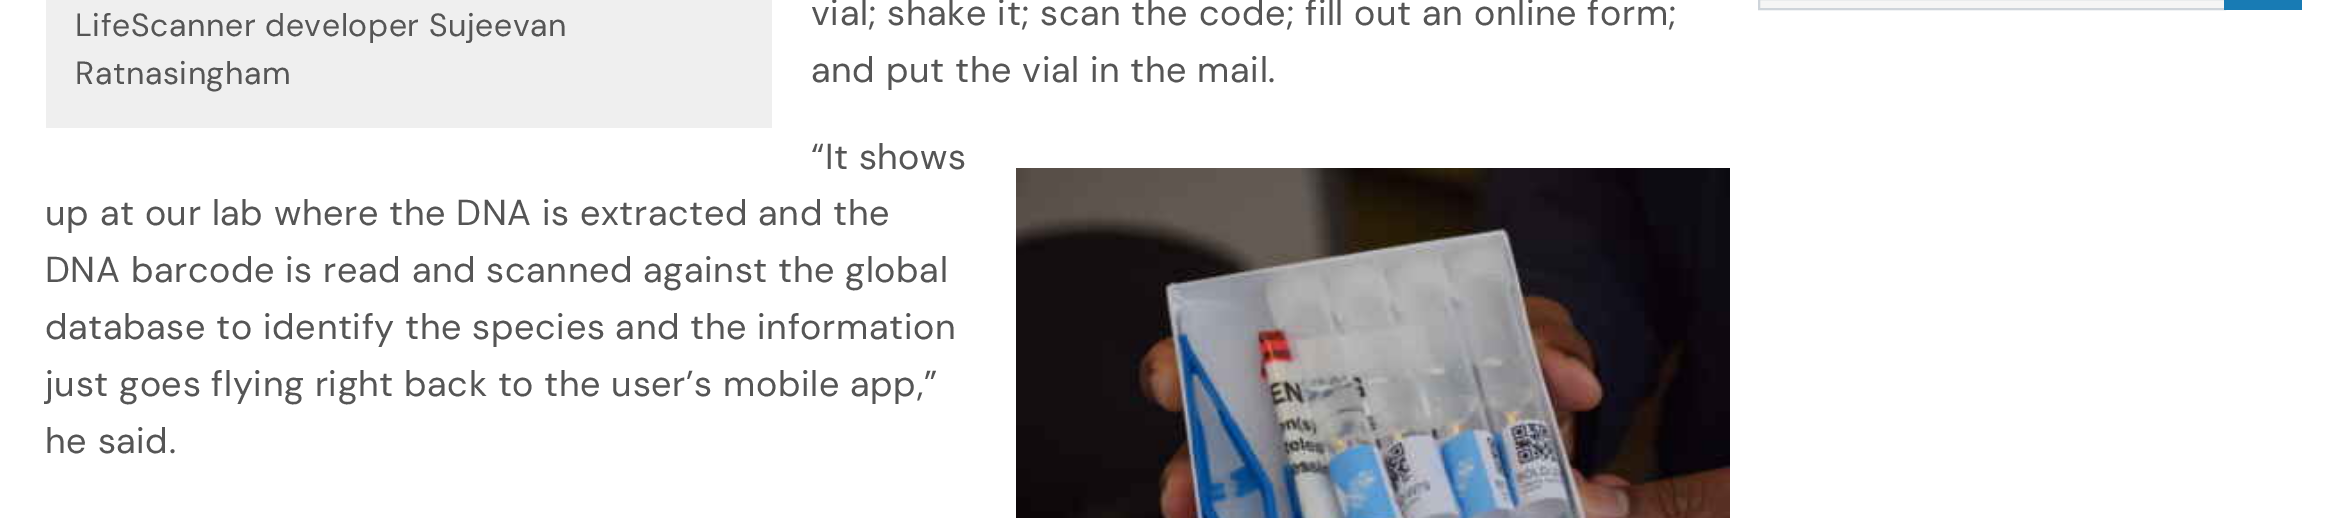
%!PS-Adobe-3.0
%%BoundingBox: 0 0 2346 518
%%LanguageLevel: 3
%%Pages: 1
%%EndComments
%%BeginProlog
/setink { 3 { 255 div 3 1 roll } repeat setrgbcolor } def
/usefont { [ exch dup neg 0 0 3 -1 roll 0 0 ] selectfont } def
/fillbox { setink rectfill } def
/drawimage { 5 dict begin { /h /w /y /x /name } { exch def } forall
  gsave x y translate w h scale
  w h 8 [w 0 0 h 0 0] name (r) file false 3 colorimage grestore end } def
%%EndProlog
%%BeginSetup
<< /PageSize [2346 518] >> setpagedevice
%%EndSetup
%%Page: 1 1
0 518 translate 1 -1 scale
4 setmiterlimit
0 0 2346 518 255 255 255 fillbox
46 0 726 128 239 239 239 fillbox
/DMSans-Regular 32 usefont
85 85 85 setink
75 36 moveto 0.6 0 (LifeScanner developer Sujeevan) ashow
75 84 moveto 0.6 0 (Ratnasingham) ashow
/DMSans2-Regular 36 usefont
811 25 moveto 0.6 0 (vial; shake it; scan the code; fill out an online form;) ashow
811 82 moveto 0.6 0 (and put the vial in the mail.) ashow
811 169 moveto 0.6 0 (“It shows) ashow
45 225 moveto 0.6 0 (up at our lab where the DNA is extracted and the) ashow
45 282 moveto 0.6 0 (DNA barcode is read and scanned against the global) ashow
45 339 moveto 0.6 0 (database to identify the species and the information) ashow
45 396 moveto 0.6 0 (just goes flying right back to the user’s mobile app,”) ashow
45 453 moveto 0.6 0 (he said.) ashow
(assets/img1.rgb) 1016 168 714 350 drawimage
245 245 245 setink
1759 -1 moveto 2225 -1 lineto 2225 9 lineto 1759 9 lineto closepath gsave fill grestore
206 212 218 setink
2 setlinewidth
stroke
2224 0 78 10 24 123 180 fillbox
showpage
%%EOF
